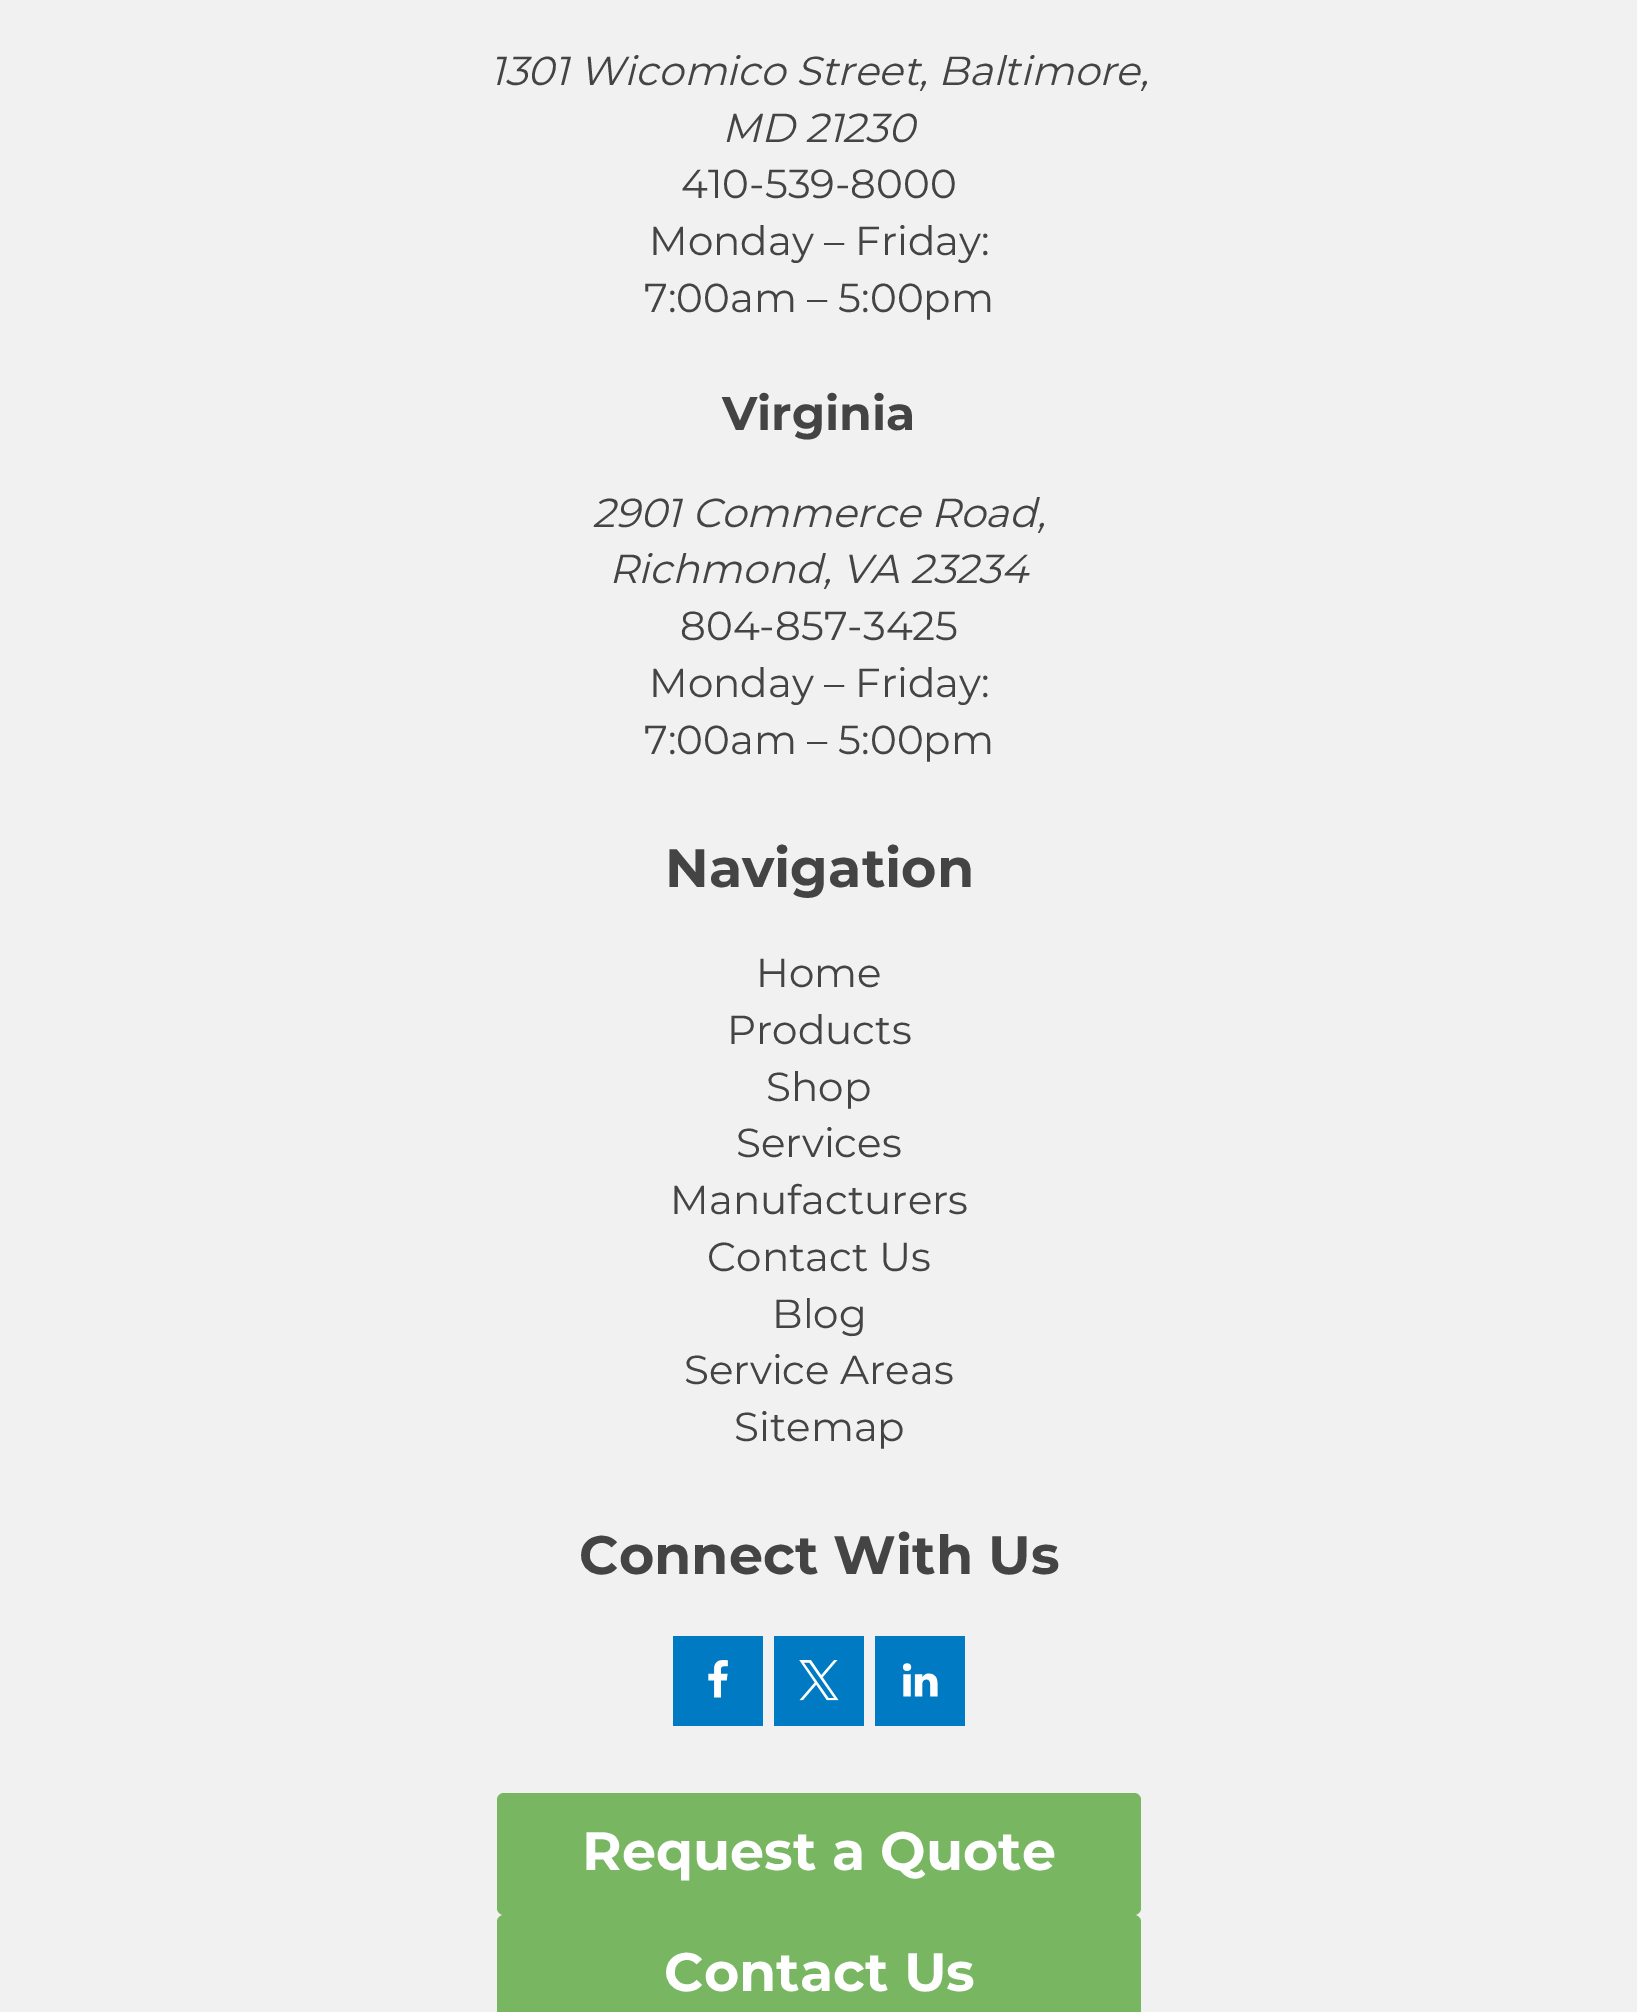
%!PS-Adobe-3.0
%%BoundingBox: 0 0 1637 2012
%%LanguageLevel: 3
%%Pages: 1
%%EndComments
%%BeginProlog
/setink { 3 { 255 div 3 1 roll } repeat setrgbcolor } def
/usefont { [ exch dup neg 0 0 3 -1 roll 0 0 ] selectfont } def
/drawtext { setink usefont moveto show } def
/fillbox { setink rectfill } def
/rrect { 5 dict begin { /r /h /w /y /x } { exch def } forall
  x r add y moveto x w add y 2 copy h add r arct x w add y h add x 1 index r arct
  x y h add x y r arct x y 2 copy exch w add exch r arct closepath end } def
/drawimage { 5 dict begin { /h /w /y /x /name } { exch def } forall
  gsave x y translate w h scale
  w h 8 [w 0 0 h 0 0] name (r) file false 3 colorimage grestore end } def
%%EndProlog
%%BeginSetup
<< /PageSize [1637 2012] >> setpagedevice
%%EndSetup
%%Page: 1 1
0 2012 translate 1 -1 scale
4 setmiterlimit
0 0 1637 2012 241 241 241 fillbox
(1301 Wicomico Street, Baltimore,) 490 85 /Montserrat-Italic 40.5 68 68 68 drawtext
(MD 21230) 722 142 /Montserrat-Italic 40.5 68 68 68 drawtext
(410-539-8000) 681 198 /Montserrat-Regular 40.5 68 68 68 drawtext
(Monday – Friday:) 649 255 /Montserrat-Regular 40.5 68 68 68 drawtext
(7:00am – 5:00pm) 644 312 /Montserrat-Regular 40.5 68 68 68 drawtext
(Virginia) 722 430 /Montserrat-Bold 47.25 68 68 68 drawtext
(2901 Commerce Road,) 592 527 /Montserrat-Italic 40.5 68 68 68 drawtext
(Richmond, VA 23234) 609 583 /Montserrat-Italic 40.5 68 68 68 drawtext
(804-857-3425) 680 640 /Montserrat-Regular 40.5 68 68 68 drawtext
(Monday – Friday:) 649 697 /Montserrat-Regular 40.5 68 68 68 drawtext
(7:00am – 5:00pm) 644 754 /Montserrat-Regular 40.5 68 68 68 drawtext
(Navigation) 665 887 /Montserrat-Bold 54 68 68 68 drawtext
(Home) 756 987 /Montserrat-Regular 40.5 68 68 68 drawtext
(Products) 727 1044 /Montserrat-Regular 40.5 68 68 68 drawtext
(Shop) 766 1101 /Montserrat-Regular 40.5 68 68 68 drawtext
(Services) 736 1157 /Montserrat-Regular 40.5 68 68 68 drawtext
(Manufacturers) 670 1214 /Montserrat-Regular 40.5 68 68 68 drawtext
(Contact Us) 707 1271 /Montserrat-Regular 40.5 68 68 68 drawtext
(Blog) 772 1328 /Montserrat-Regular 40.5 68 68 68 drawtext
(Service Areas) 684 1384 /Montserrat-Regular 40.5 68 68 68 drawtext
(Sitemap) 734 1441 /Montserrat-Regular 40.5 68 68 68 drawtext
(Connect With Us) 579 1574 /Montserrat-Bold 54 68 68 68 drawtext
673 1636 90 90 0 122 195 fillbox
(assets/img1.rgb) 708 1660 20 38 drawimage
774 1636 90 90 0 122 195 fillbox
(assets/img2.rgb) 799 1660 40 41 drawimage
875 1636 90 90 0 122 195 fillbox
(assets/img3.rgb) 902 1663 36 34 drawimage
120 182 98 setink
497 1793 644 122 7 rrect fill
(Request a Quote) 582 1870 /Montserrat-Bold 54 255 255 255 drawtext
120 182 98 setink
497 1915 644 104 7 rrect fill
(Contact Us) 664 1991 /Montserrat-Bold 54 255 255 255 drawtext
showpage
%%EOF
